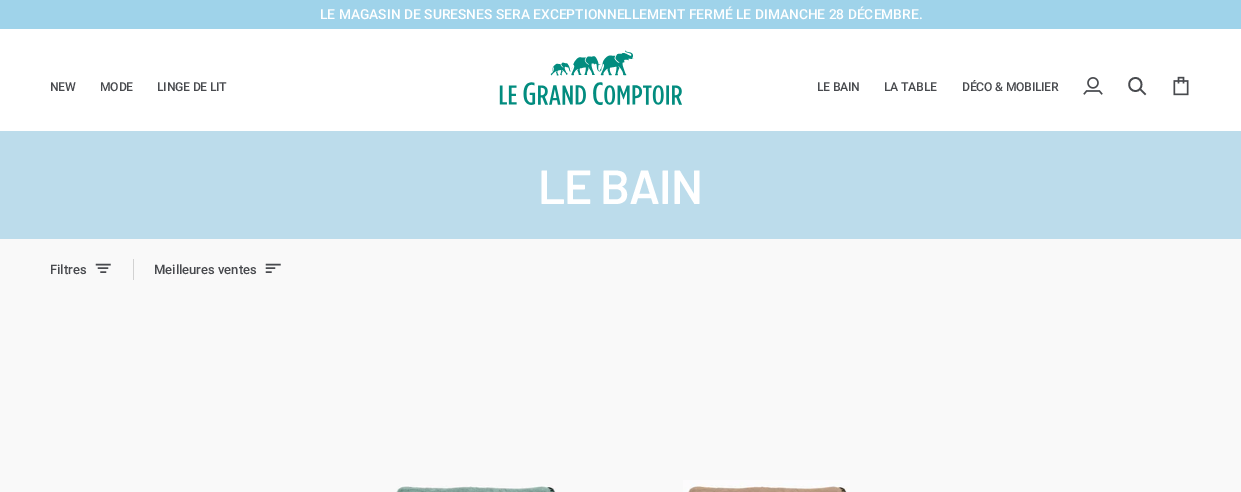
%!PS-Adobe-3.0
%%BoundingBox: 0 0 1241 492
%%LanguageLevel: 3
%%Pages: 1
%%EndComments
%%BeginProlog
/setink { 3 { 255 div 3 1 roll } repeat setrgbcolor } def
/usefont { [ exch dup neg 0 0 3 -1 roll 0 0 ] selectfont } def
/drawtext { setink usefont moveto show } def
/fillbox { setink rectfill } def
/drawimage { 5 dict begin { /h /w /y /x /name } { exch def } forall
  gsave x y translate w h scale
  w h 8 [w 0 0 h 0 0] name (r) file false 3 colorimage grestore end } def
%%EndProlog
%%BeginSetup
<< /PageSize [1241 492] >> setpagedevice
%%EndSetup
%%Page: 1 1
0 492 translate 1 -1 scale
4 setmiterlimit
0 0 1241 492 255 255 255 fillbox
0 0 1241 29 159 211 234 fillbox
(LE MAGASIN DE SURESNES SERA EXCEPTIONNELLEMENT FERMÉ LE DIMANCHE 28 DÉCEMBRE.) 320 19 /Roboto-Medium 13.8 255 255 255 drawtext
/Roboto-Medium 12.25 usefont
72 74 78 setink
50 91 moveto -0.25 0 (NEW) ashow
100 91 moveto -0.25 0 (MODE) ashow
157 91 moveto -0.25 0 (LINGE DE LIT) ashow
(assets/img1.rgb) 499 50 183 55 drawimage
817 91 moveto -0.25 0 (LE BAIN) ashow
884 91 moveto -0.25 0 (LA TABLE) ashow
962 91 moveto -0.25 0 (DÉCO & MOBILIER) ashow
(assets/img2.rgb) 1083 77 20 18 drawimage
1.7 setlinewidth
2 setlinecap
1135.5 91 moveto 1143.5 91 1143.5 78 1135.5 78 curveto 1127 78 1127 91 1135.5 91 curveto closepath 1145 94 moveto 1140 89 lineto stroke
(assets/img3.rgb) 1173 76 16 20 drawimage
0 239 1241 253 249 249 249 fillbox
0 131 1241 108 188 220 235 fillbox
/Barlow-SemiBold 48 usefont
255 255 255 setink
538 204 moveto -1 0 (LE BAIN) ashow
133 259 1 21 210 210 210 fillbox
(Filtres) 50 274 /Roboto-Medium 13 72 74 78 drawtext
1.5 setlinewidth
110 264.5 moveto 96.5 264.5 lineto 107.5 268 moveto 98.5 268 lineto 105.5 272 moveto 101 272 lineto stroke
(Meilleures ventes) 154 274 /Roboto-Medium 13 72 74 78 drawtext
280 264.5 moveto 266.5 264.5 lineto 274.5 268 moveto 266.5 268 lineto 271 272 moveto 266.5 272 lineto stroke
(assets/img4.rgb) 396 485 160 7 drawimage
(assets/img5.rgb) 683 480 167 12 drawimage
showpage
%%EOF
